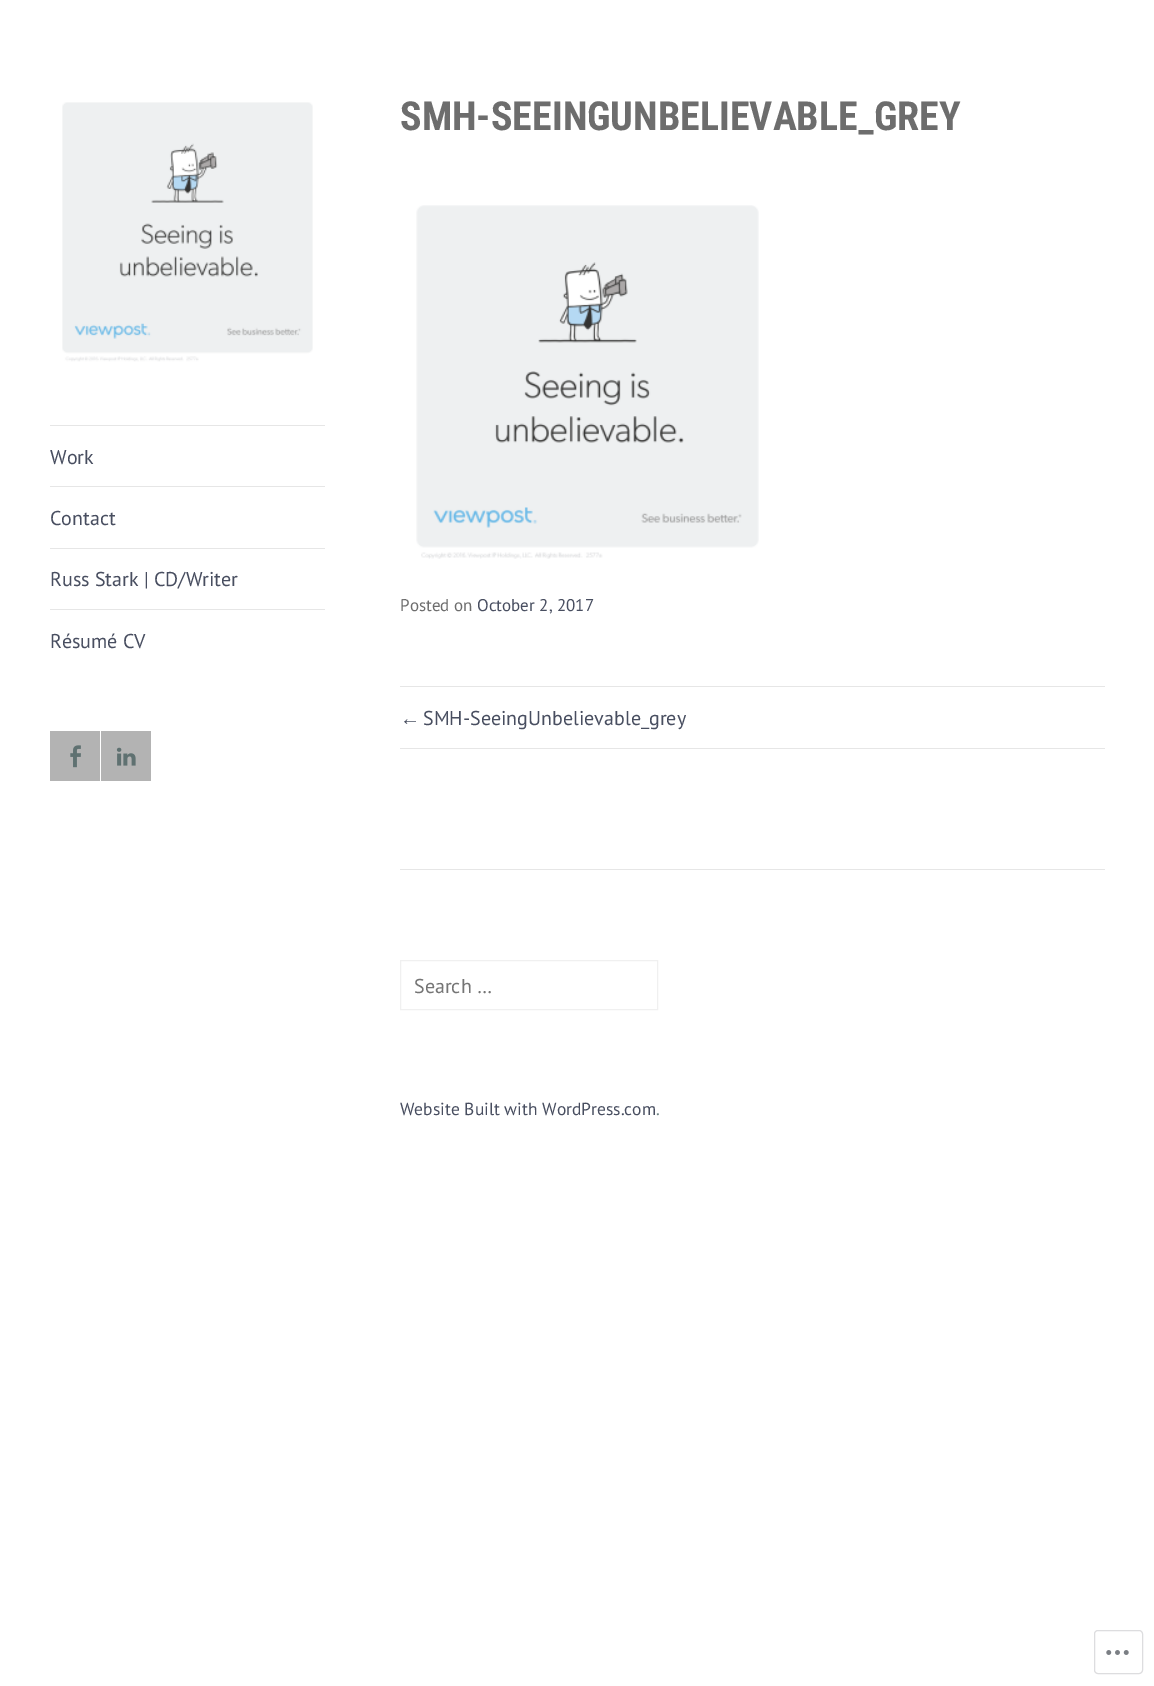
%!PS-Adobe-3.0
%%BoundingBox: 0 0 1154 1686
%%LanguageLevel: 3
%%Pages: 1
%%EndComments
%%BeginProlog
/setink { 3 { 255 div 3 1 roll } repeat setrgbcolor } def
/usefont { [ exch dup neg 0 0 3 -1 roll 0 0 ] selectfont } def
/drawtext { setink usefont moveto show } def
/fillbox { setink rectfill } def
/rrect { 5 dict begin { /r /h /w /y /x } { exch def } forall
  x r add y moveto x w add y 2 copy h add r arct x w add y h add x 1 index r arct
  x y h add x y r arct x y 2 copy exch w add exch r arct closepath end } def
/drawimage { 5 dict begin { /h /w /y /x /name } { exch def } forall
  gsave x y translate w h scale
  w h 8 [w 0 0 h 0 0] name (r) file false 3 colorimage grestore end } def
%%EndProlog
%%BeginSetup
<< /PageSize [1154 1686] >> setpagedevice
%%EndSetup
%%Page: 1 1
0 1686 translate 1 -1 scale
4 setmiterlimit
0 0 1154 1686 255 255 255 fillbox
(assets/img1.rgb) 62 102 251 260 drawimage
50 425 275 1 230 230 230 fillbox
(Work) 50 464 /PTSans-Regular 20 72 78 96 drawtext
50 486 275 1 230 230 230 fillbox
(Contact) 50 525 /PTSans-Regular 20 72 78 96 drawtext
50 548 275 1 230 230 230 fillbox
(Russ Stark | CD/Writer) 50 586 /PTSans-Regular 20 72 78 96 drawtext
50 609 275 1 230 230 230 fillbox
(Résumé CV) 50 648 /PTSans-Regular 20 72 78 96 drawtext
50 731 50 50 179 179 179 fillbox
(assets/img2.rgb) 70 745 11 23 drawimage
101 731 50 50 179 179 179 fillbox
(assets/img3.rgb) 116 747 20 19 drawimage
(SMH-SEEINGUNBELIEVABLE_GREY) 400 130 /RobotoCondensed-Bold 40 109 109 109 drawtext
(assets/img4.rgb) 416 205 343 354 drawimage
(Posted on) 400 611 /PTSans-Regular 17 109 109 109 drawtext
(October 2, 2017) 477 611 /PTSans-Regular 17 72 78 96 drawtext
400 686 705 1 230 230 230 fillbox
400 748 705 1 230 230 230 fillbox
(←) 400 725 /LiberationSans-Regular 20 72 78 96 drawtext
(SMH-SeeingUnbelievable_grey) 423 725 /PTSans-Regular 20 72 78 96 drawtext
400 869 705 1 230 230 230 fillbox
240 240 240 setink
400.5 960.5 257 49 rectstroke
(Search …) 414 993 /PTSans-Regular 20 117 117 117 drawtext
(Website Built with WordPress.com) 400 1115 /PTSans-Regular 17.5 72 78 96 drawtext
(.) 656 1115 /PTSans-Regular 17.5 109 130 130 drawtext
221 221 223 setink
1094.5 1630.5 48 43 3.5 rrect stroke
(assets/img5.rgb) 1106 1650 23 5 drawimage
showpage
%%EOF
